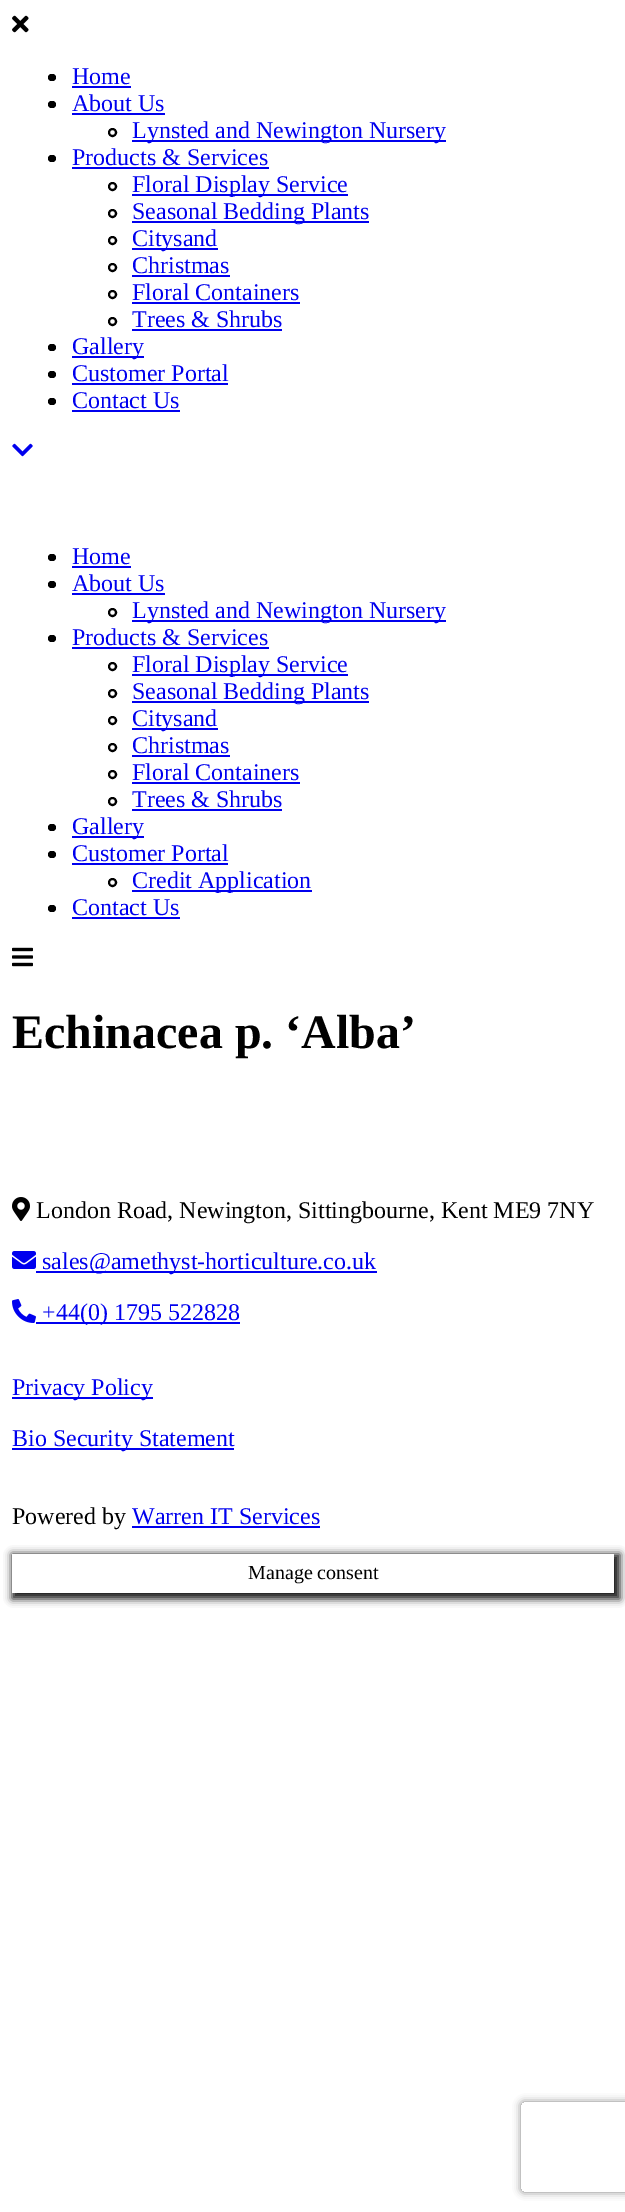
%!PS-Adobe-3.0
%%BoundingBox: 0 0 625 2212
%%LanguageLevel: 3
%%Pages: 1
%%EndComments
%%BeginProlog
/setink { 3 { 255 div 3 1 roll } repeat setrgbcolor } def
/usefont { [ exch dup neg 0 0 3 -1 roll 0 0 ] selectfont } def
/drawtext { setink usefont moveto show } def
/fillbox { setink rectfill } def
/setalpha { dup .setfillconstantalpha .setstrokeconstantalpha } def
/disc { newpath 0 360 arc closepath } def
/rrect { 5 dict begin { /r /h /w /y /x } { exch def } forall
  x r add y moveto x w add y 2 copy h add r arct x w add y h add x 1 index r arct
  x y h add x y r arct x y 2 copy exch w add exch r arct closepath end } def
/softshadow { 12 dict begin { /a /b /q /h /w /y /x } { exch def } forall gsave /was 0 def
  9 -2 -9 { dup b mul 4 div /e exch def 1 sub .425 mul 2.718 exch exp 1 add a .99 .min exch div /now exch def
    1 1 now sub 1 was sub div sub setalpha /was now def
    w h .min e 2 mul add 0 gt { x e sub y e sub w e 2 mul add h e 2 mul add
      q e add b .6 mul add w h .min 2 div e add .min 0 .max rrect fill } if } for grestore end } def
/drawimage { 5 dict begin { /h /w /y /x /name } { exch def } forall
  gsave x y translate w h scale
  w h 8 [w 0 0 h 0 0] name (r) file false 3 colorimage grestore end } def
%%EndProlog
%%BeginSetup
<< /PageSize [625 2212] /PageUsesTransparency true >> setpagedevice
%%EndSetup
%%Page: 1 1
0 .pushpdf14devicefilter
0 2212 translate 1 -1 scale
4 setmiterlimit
0 0 625 2212 255 255 255 fillbox
(assets/img1.rgb) 12 15 17 18 drawimage
0 0 0 setink
48 74 8 7 3.5 rrect fill
(Home) 72 84 /LiberationSerif-Regular 24 0 0 238 drawtext
72 86 59 2 0 0 238 fillbox
0 0 0 setink
48 101 8 7 3.5 rrect fill
(About Us) 72 111 /LiberationSerif-Regular 24 0 0 238 drawtext
72 113 93 2 0 0 238 fillbox
0 0 0 setink
2 setlinewidth
112.5 132.5 3.5 disc stroke
132 140 314 2 0 0 238 fillbox
(Lynsted and Newington Nursery) 132 138 /LiberationSerif-Regular 24 0 0 238 drawtext
0 0 0 setink
48 155 8 7 3.5 rrect fill
(Products & Services) 72 165 /LiberationSerif-Regular 24 0 0 238 drawtext
72 167 197 2 0 0 238 fillbox
0 0 0 setink
112.5 186.5 3.5 disc stroke
132 194 216 2 0 0 238 fillbox
(Floral Display Service) 132 192 /LiberationSerif-Regular 24 0 0 238 drawtext
0 0 0 setink
112.5 213.5 3.5 disc stroke
132 221 237 2 0 0 238 fillbox
(Seasonal Bedding Plants) 132 219 /LiberationSerif-Regular 24 0 0 238 drawtext
0 0 0 setink
112.5 240.5 3.5 disc stroke
132 248 86 2 0 0 238 fillbox
(Citysand) 132 246 /LiberationSerif-Regular 24 0 0 238 drawtext
0 0 0 setink
112.5 267.5 3.5 disc stroke
(Christmas) 132 273 /LiberationSerif-Regular 24 0 0 238 drawtext
132 275 98 2 0 0 238 fillbox
0 0 0 setink
112.5 294.5 3.5 disc stroke
(Floral Containers) 132 300 /LiberationSerif-Regular 24 0 0 238 drawtext
132 302 168 2 0 0 238 fillbox
0 0 0 setink
112.5 321.5 3.5 disc stroke
(Trees & Shrubs) 132 327 /LiberationSerif-Regular 24 0 0 238 drawtext
132 329 150 2 0 0 238 fillbox
0 0 0 setink
48 344 8 7 3.5 rrect fill
72 356 72 2 0 0 238 fillbox
(Gallery) 72 354 /LiberationSerif-Regular 24 0 0 238 drawtext
0 0 0 setink
48 371 8 7 3.5 rrect fill
(Customer Portal) 72 381 /LiberationSerif-Regular 24 0 0 238 drawtext
72 383 156 2 0 0 238 fillbox
0 0 0 setink
48 398 8 7 3.5 rrect fill
(Contact Us) 72 408 /LiberationSerif-Regular 24 0 0 238 drawtext
72 410 108 2 0 0 238 fillbox
(assets/img2.rgb) 12 443 21 14 drawimage
0 0 0 setink
48 554 8 7 3.5 rrect fill
(Home) 72 564 /LiberationSerif-Regular 24 0 0 238 drawtext
72 566 59 2 0 0 238 fillbox
0 0 0 setink
48 581 8 7 3.5 rrect fill
(About Us) 72 591 /LiberationSerif-Regular 24 0 0 238 drawtext
72 593 93 2 0 0 238 fillbox
0 0 0 setink
112.5 612.5 3.5 disc stroke
132 620 314 2 0 0 238 fillbox
(Lynsted and Newington Nursery) 132 618 /LiberationSerif-Regular 24 0 0 238 drawtext
0 0 0 setink
48 635 8 7 3.5 rrect fill
(Products & Services) 72 645 /LiberationSerif-Regular 24 0 0 238 drawtext
72 647 197 2 0 0 238 fillbox
0 0 0 setink
112.5 666.5 3.5 disc stroke
132 674 216 2 0 0 238 fillbox
(Floral Display Service) 132 672 /LiberationSerif-Regular 24 0 0 238 drawtext
0 0 0 setink
112.5 693.5 3.5 disc stroke
132 701 237 2 0 0 238 fillbox
(Seasonal Bedding Plants) 132 699 /LiberationSerif-Regular 24 0 0 238 drawtext
0 0 0 setink
112.5 720.5 3.5 disc stroke
132 728 86 2 0 0 238 fillbox
(Citysand) 132 726 /LiberationSerif-Regular 24 0 0 238 drawtext
0 0 0 setink
112.5 747.5 3.5 disc stroke
(Christmas) 132 753 /LiberationSerif-Regular 24 0 0 238 drawtext
132 755 98 2 0 0 238 fillbox
0 0 0 setink
112.5 774.5 3.5 disc stroke
(Floral Containers) 132 780 /LiberationSerif-Regular 24 0 0 238 drawtext
132 782 168 2 0 0 238 fillbox
0 0 0 setink
112.5 801.5 3.5 disc stroke
(Trees & Shrubs) 132 807 /LiberationSerif-Regular 24 0 0 238 drawtext
132 809 150 2 0 0 238 fillbox
0 0 0 setink
48 824 8 7 3.5 rrect fill
72 836 72 2 0 0 238 fillbox
(Gallery) 72 834 /LiberationSerif-Regular 24 0 0 238 drawtext
0 0 0 setink
48 851 8 7 3.5 rrect fill
(Customer Portal) 72 861 /LiberationSerif-Regular 24 0 0 238 drawtext
72 863 156 2 0 0 238 fillbox
0 0 0 setink
112.5 882.5 3.5 disc stroke
132 890 180 2 0 0 238 fillbox
(Credit Application) 132 888 /LiberationSerif-Regular 24 0 0 238 drawtext
0 0 0 setink
48 905 8 7 3.5 rrect fill
(Contact Us) 72 915 /LiberationSerif-Regular 24 0 0 238 drawtext
72 917 108 2 0 0 238 fillbox
(assets/img3.rgb) 12 947 21 20 drawimage
(Echinacea p. ‘Alba’) 12 1048 /LiberationSerif-Bold 48 0 0 0 drawtext
(assets/img4.rgb) 12 1197 18 24 drawimage
(London Road, Newington, Sittingbourne, Kent ME9 7NY) 36 1218 /LiberationSerif-Regular 24 0 0 0 drawtext
(assets/img5.rgb) 12 1251 24 18 drawimage
36 1271 341 2 0 0 238 fillbox
(sales@amethyst-horticulture.co.uk) 42 1269 /LiberationSerif-Regular 24 0 0 238 drawtext
(assets/img6.rgb) 12 1299 24 24 drawimage
36 1322 204 2 0 0 238 fillbox
(+44\(0\) 1795 522828) 42 1320 /LiberationSerif-Regular 24 0 0 238 drawtext
12 1397 141 2 0 0 238 fillbox
(Privacy Policy) 12 1395 /LiberationSerif-Regular 24 0 0 238 drawtext
12 1448 222 2 0 0 238 fillbox
(Bio Security Statement) 12 1446 /LiberationSerif-Regular 24 0 0 238 drawtext
(Powered by) 12 1524 /LiberationSerif-Regular 24 0 0 0 drawtext
(Warren IT Services) 132 1524 /LiberationSerif-Regular 24 0 0 238 drawtext
132 1526 188 2 0 0 238 fillbox
gsave
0 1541 moveto 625 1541 lineto 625 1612 lineto 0 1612 lineto closepath 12 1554 moveto 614 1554 lineto 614 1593 lineto 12 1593 lineto closepath eoclip newpath
22 22 22 setink
12 1554 608 45 0 4 1 softshadow
grestore
(Manage consent) 248 1579 /LiberationSerif-Regular 20 0 0 0 drawtext
gsave
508 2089 moveto 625 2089 lineto 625 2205 lineto 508 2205 lineto closepath 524 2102 moveto 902 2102 lineto 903.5 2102 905 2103.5 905 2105 curveto 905 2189 lineto 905 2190.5 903.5 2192 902 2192 curveto 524 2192 lineto 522.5 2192 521 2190.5 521 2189 curveto 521 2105 lineto 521 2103.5 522.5 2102 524 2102 curveto closepath eoclip newpath
128 128 128 setink
521 2102 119 90 3 4 1 softshadow
grestore
.poppdf14devicefilter showpage
%%EOF
